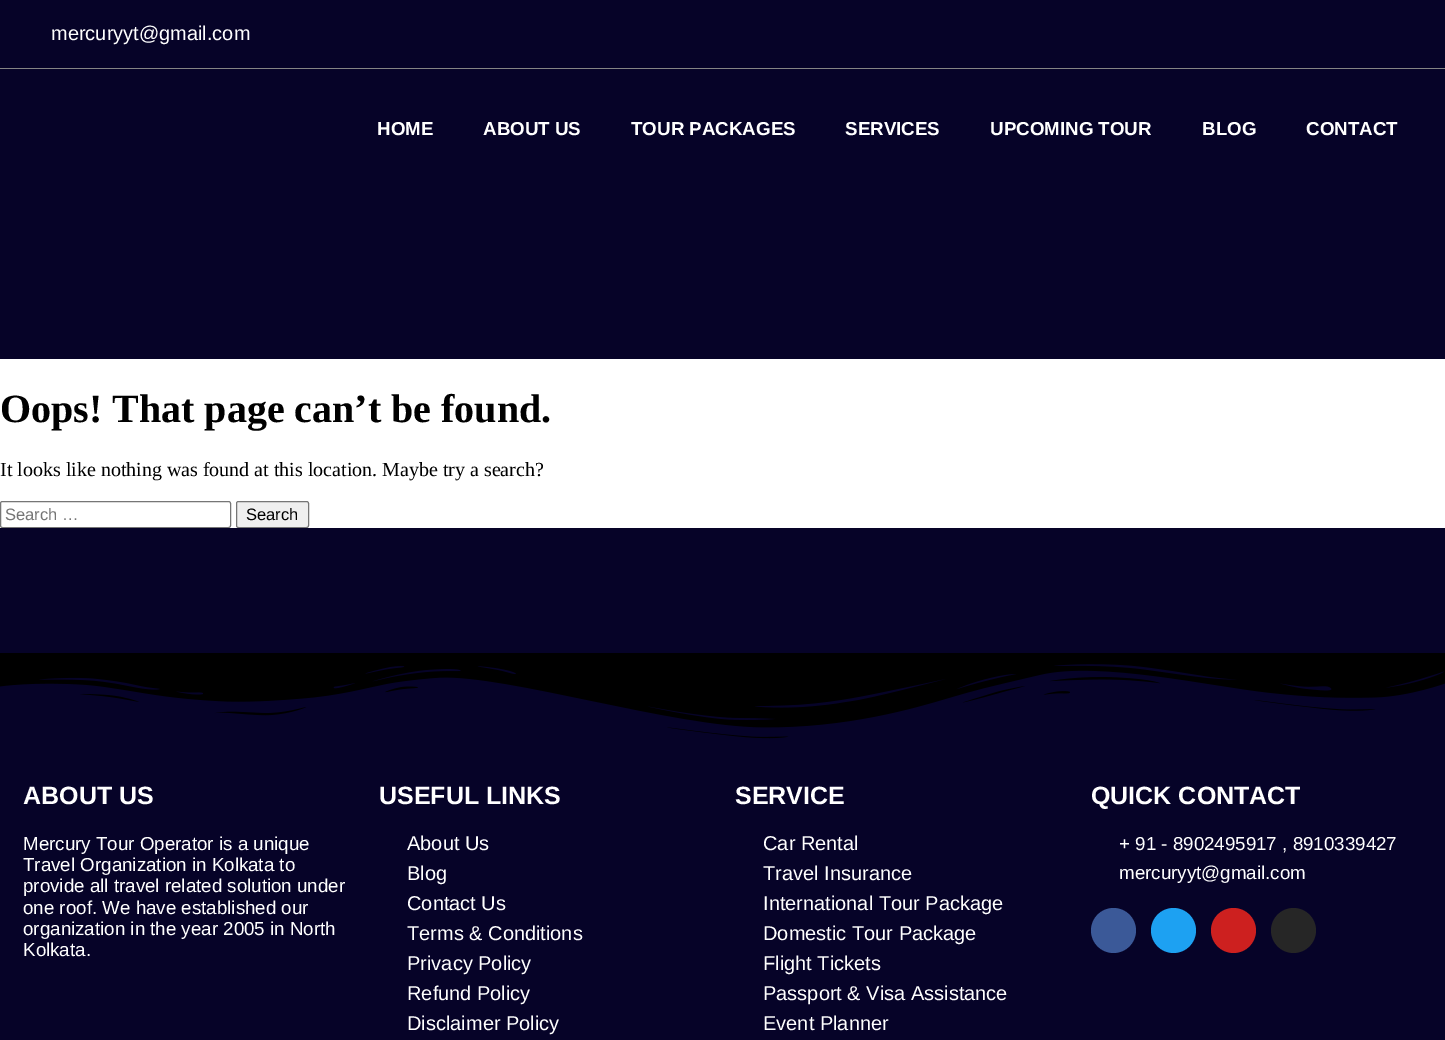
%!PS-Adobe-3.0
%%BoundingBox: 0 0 1445 1040
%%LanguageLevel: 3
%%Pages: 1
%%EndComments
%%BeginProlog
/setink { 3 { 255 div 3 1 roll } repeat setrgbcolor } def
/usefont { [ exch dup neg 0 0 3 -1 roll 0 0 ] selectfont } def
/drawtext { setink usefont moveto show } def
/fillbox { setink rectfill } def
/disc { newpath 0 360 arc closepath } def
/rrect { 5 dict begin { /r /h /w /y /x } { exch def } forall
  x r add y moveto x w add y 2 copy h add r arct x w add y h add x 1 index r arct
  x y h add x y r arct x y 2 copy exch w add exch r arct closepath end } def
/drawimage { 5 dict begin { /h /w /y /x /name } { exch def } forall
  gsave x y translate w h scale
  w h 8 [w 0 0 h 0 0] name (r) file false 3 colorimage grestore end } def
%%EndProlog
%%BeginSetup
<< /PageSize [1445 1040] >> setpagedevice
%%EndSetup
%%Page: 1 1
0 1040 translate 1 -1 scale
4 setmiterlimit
0 0 1445 1040 255 255 255 fillbox
0 0 1445 68 6 3 40 fillbox
0 68 1445 1 132 132 132 fillbox
(mercuryyt@gmail.com) 51 40 /LiberationSans-Regular 20 255 255 255 drawtext
0 69 1445 290 6 3 40 fillbox
(HOME) 377 135 /LiberationSans-Bold 18.75 255 255 255 drawtext
(ABOUT US) 483 135 /LiberationSans-Bold 18.75 255 255 255 drawtext
(TOUR PACKAGES) 631 135 /LiberationSans-Bold 18.75 255 255 255 drawtext
(SERVICES) 845 135 /LiberationSans-Bold 18.75 255 255 255 drawtext
(UPCOMING TOUR) 990 135 /LiberationSans-Bold 18.75 255 255 255 drawtext
(BLOG) 1202 135 /LiberationSans-Bold 18.75 255 255 255 drawtext
(CONTACT) 1306 135 /LiberationSans-Bold 18.75 255 255 255 drawtext
(Oops! That page can’t be found.) 0 422 /LiberationSerif-Bold 40 0 0 0 drawtext
(It looks like nothing was found at this location. Maybe try a search?) 0 476 /LiberationSerif-Regular 20 0 0 0 drawtext
118 118 118 setink
0.5 501.5 230 26 2 rrect stroke
(Search …) 5 520 /LiberationSans-Regular 16.5 117 117 117 drawtext
239 239 239 setink
236.5 501.5 72 26 2 rrect gsave fill grestore
118 118 118 setink
stroke
(Search) 246 520 /LiberationSans-Regular 16.5 0 0 0 drawtext
0 528 1445 512 6 3 40 fillbox
(assets/img1.rgb) 0 653 1445 86 drawimage
(ABOUT US) 23 804 /LiberationSans-Bold 25 255 255 255 drawtext
(Mercury Tour Operator is a unique) 23 850 /LiberationSans-Regular 18.75 255 255 255 drawtext
(Travel Organization in Kolkata to) 23 871 /LiberationSans-Regular 18.75 255 255 255 drawtext
(provide all travel related solution under) 23 892 /LiberationSans-Regular 18.75 255 255 255 drawtext
(one roof. We have established our) 23 914 /LiberationSans-Regular 18.75 255 255 255 drawtext
(organization in the year 2005 in North) 23 935 /LiberationSans-Regular 18.75 255 255 255 drawtext
(Kolkata.) 23 956 /LiberationSans-Regular 18.75 255 255 255 drawtext
(USEFUL LINKS) 379 804 /LiberationSans-Bold 25 255 255 255 drawtext
(About Us) 407 850 /LiberationSans-Regular 20 255 255 255 drawtext
(Blog) 407 880 /LiberationSans-Regular 20 255 255 255 drawtext
(Contact Us) 407 910 /LiberationSans-Regular 20 255 255 255 drawtext
(Terms & Conditions) 407 940 /LiberationSans-Regular 20 255 255 255 drawtext
(Privacy Policy) 407 970 /LiberationSans-Regular 20 255 255 255 drawtext
(Refund Policy) 407 1000 /LiberationSans-Regular 20 255 255 255 drawtext
(Disclaimer Policy) 407 1030 /LiberationSans-Regular 20 255 255 255 drawtext
(SERVICE) 735 804 /LiberationSans-Bold 25 255 255 255 drawtext
(Car Rental) 763 850 /LiberationSans-Regular 20 255 255 255 drawtext
(Travel Insurance) 763 880 /LiberationSans-Regular 20 255 255 255 drawtext
(International Tour Package) 763 910 /LiberationSans-Regular 20 255 255 255 drawtext
(Domestic Tour Package) 763 940 /LiberationSans-Regular 20 255 255 255 drawtext
(Flight Tickets) 763 970 /LiberationSans-Regular 20 255 255 255 drawtext
(Passport & Visa Assistance) 763 1000 /LiberationSans-Regular 20 255 255 255 drawtext
(Event Planner) 763 1030 /LiberationSans-Regular 20 255 255 255 drawtext
(QUICK CONTACT) 1091 804 /LiberationSans-Bold 25 255 255 255 drawtext
(+ 91 - 8902495917 , 8910339427) 1119 850 /LiberationSans-Regular 18.75 255 255 255 drawtext
(mercuryyt@gmail.com) 1119 879 /LiberationSans-Regular 18.75 255 255 255 drawtext
59 89 152 setink
1113.5 930.5 22.5 disc fill
29 161 242 setink
1173.5 930.5 22.5 disc fill
205 32 31 setink
1233.5 930.5 22.5 disc fill
38 38 38 setink
1293.5 930.5 22.5 disc fill
showpage
%%EOF
